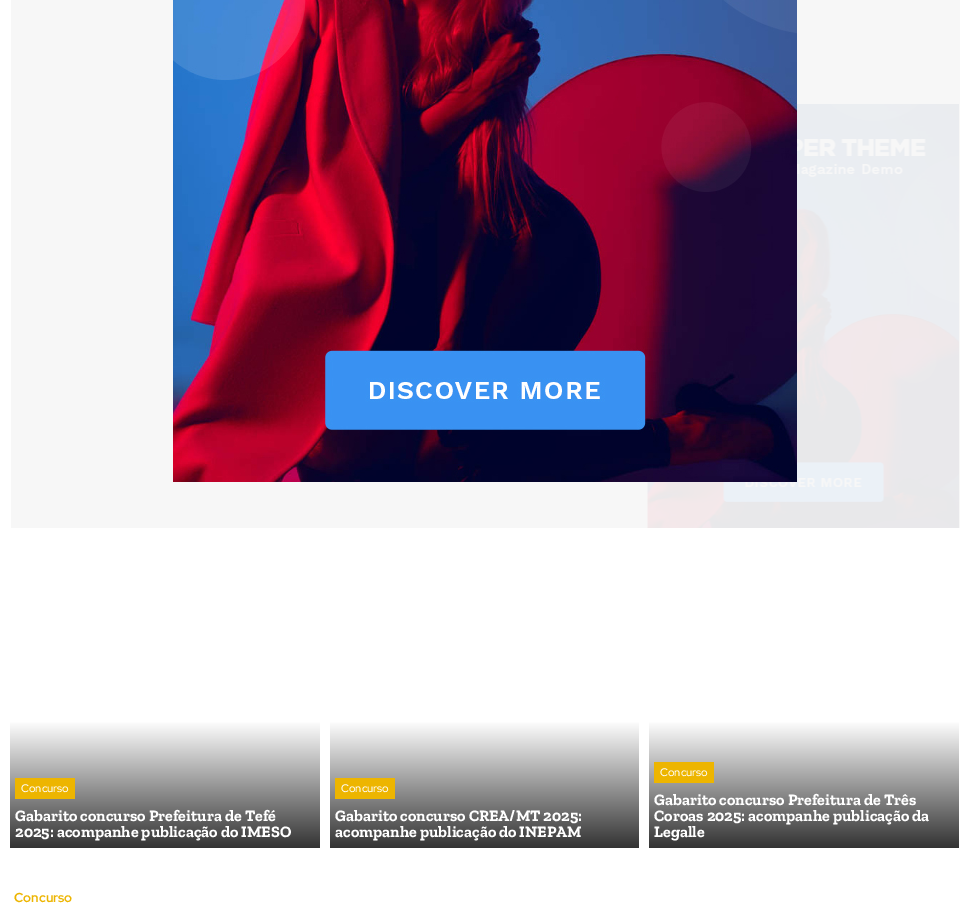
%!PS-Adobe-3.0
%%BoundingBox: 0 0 969 903
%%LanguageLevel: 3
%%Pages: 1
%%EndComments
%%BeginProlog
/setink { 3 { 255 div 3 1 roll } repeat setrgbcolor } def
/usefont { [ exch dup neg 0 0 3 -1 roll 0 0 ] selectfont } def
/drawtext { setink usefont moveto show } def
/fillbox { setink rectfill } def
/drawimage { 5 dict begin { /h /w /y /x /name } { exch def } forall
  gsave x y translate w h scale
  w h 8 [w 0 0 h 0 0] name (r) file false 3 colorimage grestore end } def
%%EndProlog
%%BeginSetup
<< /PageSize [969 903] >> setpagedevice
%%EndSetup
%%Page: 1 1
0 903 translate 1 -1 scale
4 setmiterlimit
0 0 969 903 255 255 255 fillbox
11 0 949 528 247 247 247 fillbox
(assets/img1.rgb) 647 104 312 424 drawimage
(assets/img2.rgb) 173 0 624 482 drawimage
gsave 10 722 moveto 320 722 lineto 320 848 lineto 10 848 lineto closepath clip newpath
<< /ShadingType 2 /ColorSpace /DeviceRGB /Coords [165 848 165 538] /Extend [true true] /Function << /FunctionType 3 /Domain [0 1] /Functions [<< /FunctionType 2 /Domain [0 1] /C0 [0.2 0.2 0.2] /C1 [1 1 1] /N 1 >> << /FunctionType 2 /Domain [0 1] /C0 [1 1 1] /C1 [1 1 1] /N 1 >>] /Bounds [0.41] /Encode [0 1 0 1] >> >> shfill grestore
15 778 60 21 237 181 0 fillbox
(Concurso) 21 792 /RedHatDisplay-Medium 11 255 255 255 drawtext
(Gabarito concurso Prefeitura de Tefé) 15 821 /ZillaSlab-Bold 16 255 255 255 drawtext
(2025: acompanhe publicação do IMESO) 15 837 /ZillaSlab-Bold 16 255 255 255 drawtext
gsave 330 722 moveto 639 722 lineto 639 848 lineto 330 848 lineto closepath clip newpath
<< /ShadingType 2 /ColorSpace /DeviceRGB /Coords [485 848 485 538] /Extend [true true] /Function << /FunctionType 3 /Domain [0 1] /Functions [<< /FunctionType 2 /Domain [0 1] /C0 [0.2 0.2 0.2] /C1 [1 1 1] /N 1 >> << /FunctionType 2 /Domain [0 1] /C0 [1 1 1] /C1 [1 1 1] /N 1 >>] /Bounds [0.41] /Encode [0 1 0 1] >> >> shfill grestore
335 778 60 21 237 181 0 fillbox
(Concurso) 341 792 /RedHatDisplay-Medium 11 255 255 255 drawtext
(Gabarito concurso CREA/MT 2025:) 335 821 /ZillaSlab-Bold 16 255 255 255 drawtext
(acompanhe publicação do INEPAM) 335 837 /ZillaSlab-Bold 16 255 255 255 drawtext
gsave 649 722 moveto 959 722 lineto 959 848 lineto 649 848 lineto closepath clip newpath
<< /ShadingType 2 /ColorSpace /DeviceRGB /Coords [804 848 804 538] /Extend [true true] /Function << /FunctionType 3 /Domain [0 1] /Functions [<< /FunctionType 2 /Domain [0 1] /C0 [0.2 0.2 0.2] /C1 [1 1 1] /N 1 >> << /FunctionType 2 /Domain [0 1] /C0 [1 1 1] /C1 [1 1 1] /N 1 >>] /Bounds [0.41] /Encode [0 1 0 1] >> >> shfill grestore
654 762 60 21 237 181 0 fillbox
(Concurso) 660 776 /RedHatDisplay-Medium 11 255 255 255 drawtext
(Gabarito concurso Prefeitura de Três) 654 805 /ZillaSlab-Bold 16 255 255 255 drawtext
(Coroas 2025: acompanhe publicação da) 654 821 /ZillaSlab-Bold 16 255 255 255 drawtext
(Legalle) 654 837 /ZillaSlab-Bold 16 255 255 255 drawtext
(Concurso) 14 902 /RedHatDisplay-Bold 13 237 181 0 drawtext
showpage
%%EOF
